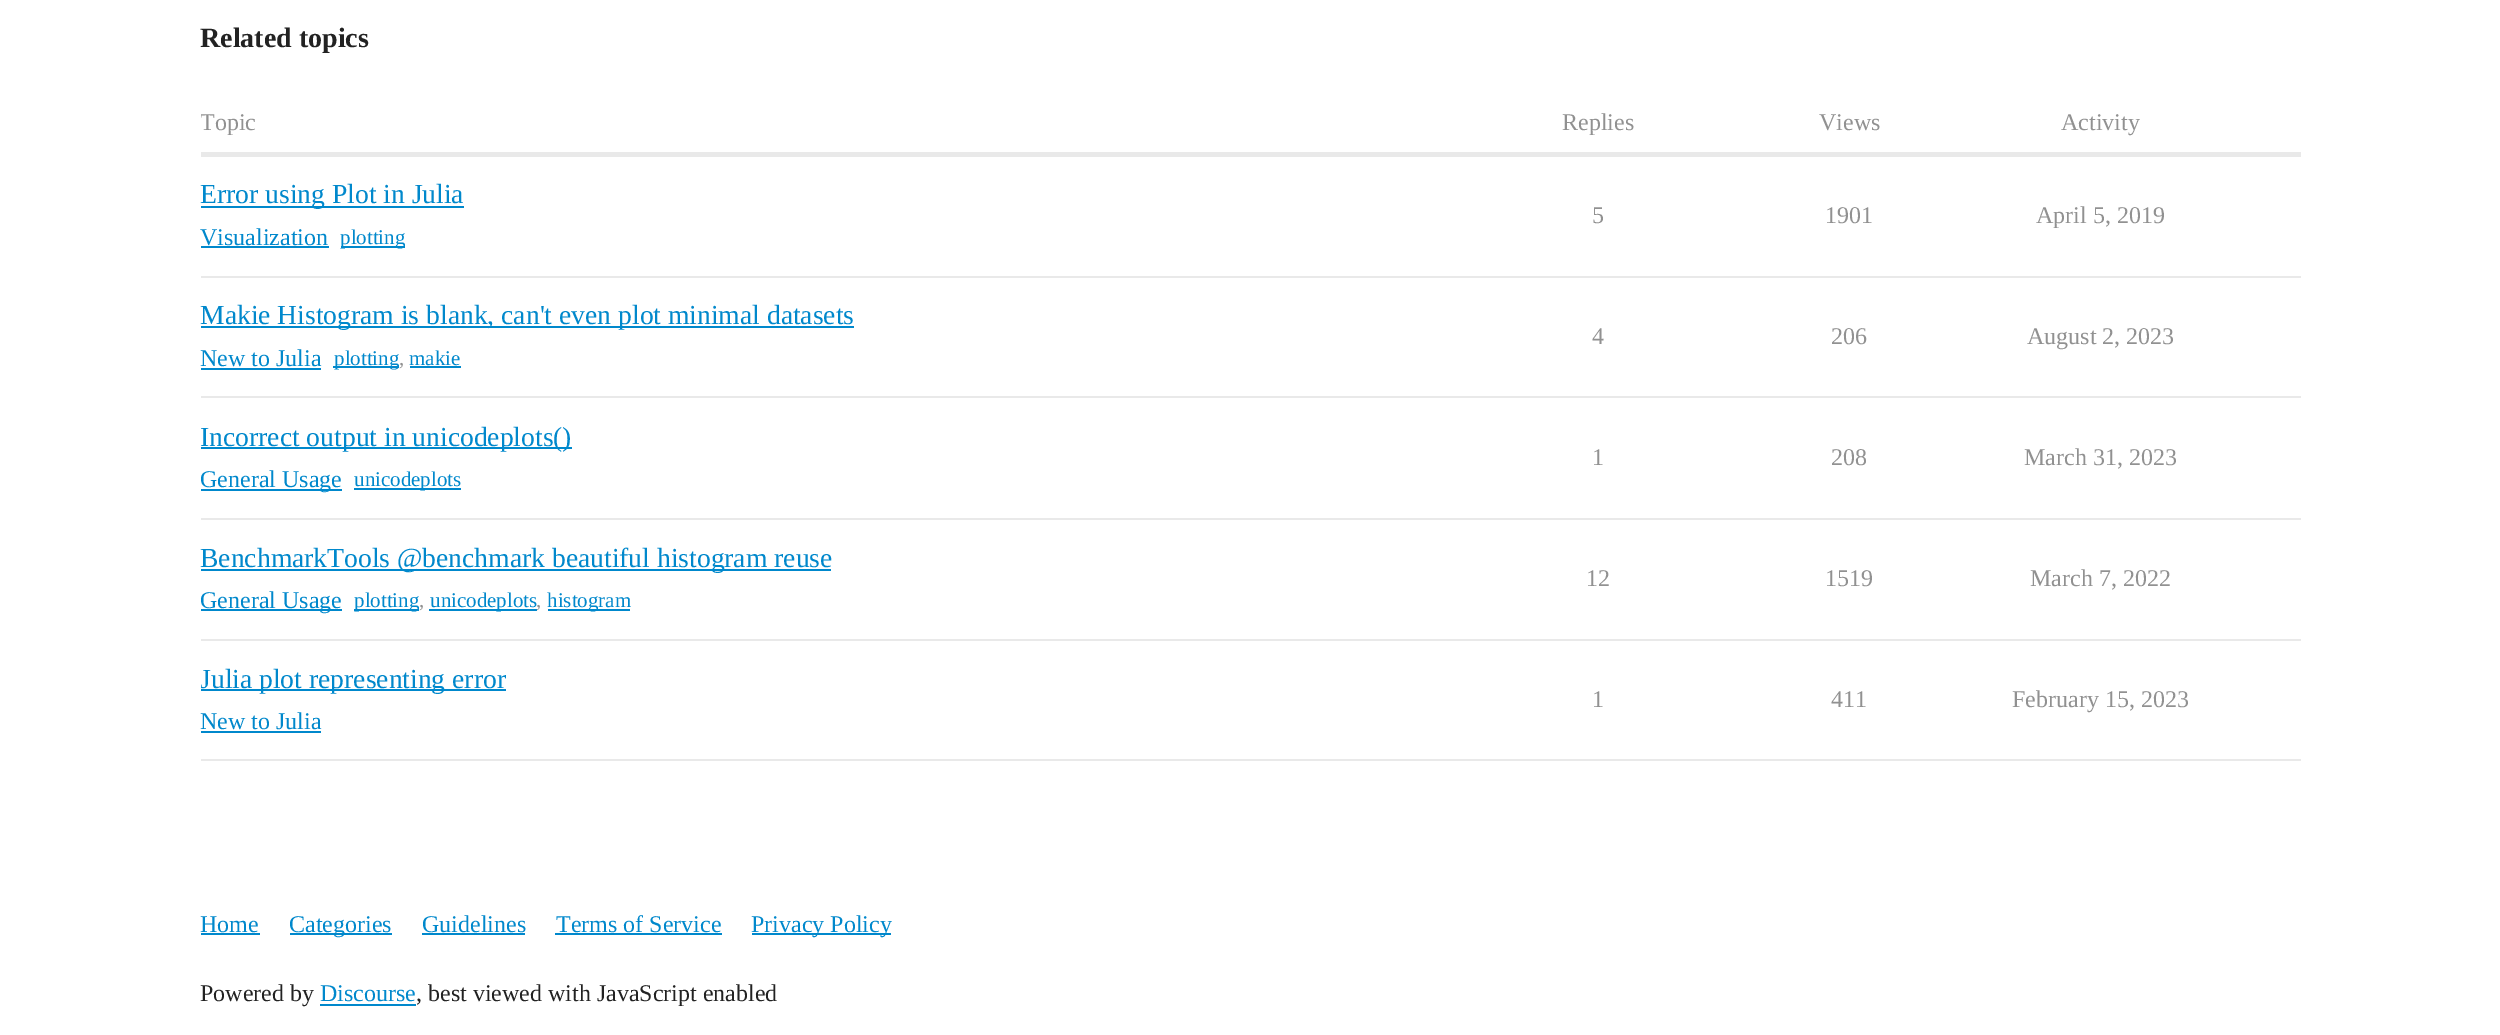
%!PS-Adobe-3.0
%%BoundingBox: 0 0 2500 1035
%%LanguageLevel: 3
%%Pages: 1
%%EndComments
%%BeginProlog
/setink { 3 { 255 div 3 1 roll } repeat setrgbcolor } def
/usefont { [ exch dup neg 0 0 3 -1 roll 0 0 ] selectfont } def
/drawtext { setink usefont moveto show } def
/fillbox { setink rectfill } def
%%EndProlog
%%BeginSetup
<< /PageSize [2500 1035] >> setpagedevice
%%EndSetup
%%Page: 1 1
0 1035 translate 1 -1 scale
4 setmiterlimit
0 0 2500 1035 255 255 255 fillbox
(Related topics) 200 47 /LiberationSerif-Bold 28 34 34 34 drawtext
gsave
201 105 2100 656 rectclip
(Topic) 200 130 /LiberationSerif-Regular 24 145 145 145 drawtext
grestore
(Replies) 1562 130 /LiberationSerif-Regular 24 145 145 145 drawtext
(Views) 1819 130 /LiberationSerif-Regular 24 145 145 145 drawtext
(Activity) 2061 130 /LiberationSerif-Regular 24 145 145 145 drawtext
201 152 2100 5 233 233 233 fillbox
201 276 2100 2 233 233 233 fillbox
201 206 263 2 0 136 204 fillbox
(Error using Plot in Julia) 200 203 /LiberationSerif-Regular 27.6 0 136 204 drawtext
(Visualization) 200 245 /LiberationSerif-Regular 24 0 136 204 drawtext
201 246 128 2 0 136 204 fillbox
341 246 64 2 0 136 204 fillbox
(plotting) 340 244 /LiberationSerif-Regular 21 0 136 204 drawtext
(5) 1592 223 /LiberationSerif-Regular 24 145 145 145 drawtext
(1901) 1825 223 /LiberationSerif-Regular 24 145 145 145 drawtext
(April 5, 2019) 2036 223 /LiberationSerif-Regular 24 145 145 145 drawtext
201 396 2100 2 233 233 233 fillbox
201 326 653 2 0 136 204 fillbox
(Makie Histogram is blank, can't even plot minimal datasets) 200 324 /LiberationSerif-Regular 27.6 0 136 204 drawtext
(New to Julia) 200 366 /LiberationSerif-Regular 24 0 136 204 drawtext
201 368 120 2 0 136 204 fillbox
333 366 66 2 0 136 204 fillbox
(plotting) 334 365 /LiberationSerif-Regular 21 0 136 204 drawtext
(,) 399 365 /LiberationSerif-Regular 21 145 145 145 drawtext
(makie) 409 365 /LiberationSerif-Regular 21 0 136 204 drawtext
410 366 51 2 0 136 204 fillbox
(4) 1592 344 /LiberationSerif-Regular 24 145 145 145 drawtext
(206) 1831 344 /LiberationSerif-Regular 24 145 145 145 drawtext
(August 2, 2023) 2027 344 /LiberationSerif-Regular 24 145 145 145 drawtext
201 518 2100 2 233 233 233 fillbox
201 447 371 2 0 136 204 fillbox
(Incorrect output in unicodeplots\(\)) 200 446 /LiberationSerif-Regular 27.6 0 136 204 drawtext
201 489 141 2 0 136 204 fillbox
(General Usage) 200 487 /LiberationSerif-Regular 24 0 136 204 drawtext
354 488 107 2 0 136 204 fillbox
(unicodeplots) 354 486 /LiberationSerif-Regular 21 0 136 204 drawtext
(1) 1592 465 /LiberationSerif-Regular 24 145 145 145 drawtext
(208) 1831 465 /LiberationSerif-Regular 24 145 145 145 drawtext
(March 31, 2023) 2024 465 /LiberationSerif-Regular 24 145 145 145 drawtext
201 639 2100 2 233 233 233 fillbox
201 569 630 2 0 136 204 fillbox
(BenchmarkTools @benchmark beautiful histogram reuse) 200 567 /LiberationSerif-Regular 27.6 0 136 204 drawtext
201 609 141 2 0 136 204 fillbox
(General Usage) 200 608 /LiberationSerif-Regular 24 0 136 204 drawtext
354 609 65 2 0 136 204 fillbox
(plotting) 354 607 /LiberationSerif-Regular 21 0 136 204 drawtext
(,) 419 607 /LiberationSerif-Regular 21 145 145 145 drawtext
429 609 108 2 0 136 204 fillbox
(unicodeplots) 430 607 /LiberationSerif-Regular 21 0 136 204 drawtext
(,) 536 607 /LiberationSerif-Regular 21 145 145 145 drawtext
548 609 82 2 0 136 204 fillbox
(histogram) 547 607 /LiberationSerif-Regular 21 0 136 204 drawtext
(12) 1586 586 /LiberationSerif-Regular 24 145 145 145 drawtext
(1519) 1825 586 /LiberationSerif-Regular 24 145 145 145 drawtext
(March 7, 2022) 2030 586 /LiberationSerif-Regular 24 145 145 145 drawtext
201 759 2100 2 233 233 233 fillbox
201 689 305 2 0 136 204 fillbox
gsave
201 105 2100 656 rectclip
(Julia plot representing error) 200 688 /LiberationSerif-Regular 27.6 0 136 204 drawtext
grestore
(New to Julia) 200 729 /LiberationSerif-Regular 24 0 136 204 drawtext
201 731 120 2 0 136 204 fillbox
(1) 1592 707 /LiberationSerif-Regular 24 145 145 145 drawtext
(411) 1831 707 /LiberationSerif-Regular 24 145 145 145 drawtext
(February 15, 2023) 2012 707 /LiberationSerif-Regular 24 145 145 145 drawtext
(Home) 200 932 /LiberationSerif-Regular 24 0 136 204 drawtext
201 933 59 2 0 136 204 fillbox
290 933 102 2 0 136 204 fillbox
(Categories) 289 932 /LiberationSerif-Regular 24 0 136 204 drawtext
(Guidelines) 422 932 /LiberationSerif-Regular 24 0 136 204 drawtext
422 933 103 2 0 136 204 fillbox
(Terms of Service) 556 932 /LiberationSerif-Regular 24 0 136 204 drawtext
555 933 167 2 0 136 204 fillbox
752 933 139 2 0 136 204 fillbox
(Privacy Policy) 751 932 /LiberationSerif-Regular 24 0 136 204 drawtext
(Powered by) 200 1001 /LiberationSerif-Regular 24 34 34 34 drawtext
(Discourse) 320 1001 /LiberationSerif-Regular 24 0 136 204 drawtext
320 1004 96 2 0 136 204 fillbox
(, best viewed with JavaScript enabled) 416 1001 /LiberationSerif-Regular 24 34 34 34 drawtext
showpage
%%EOF
